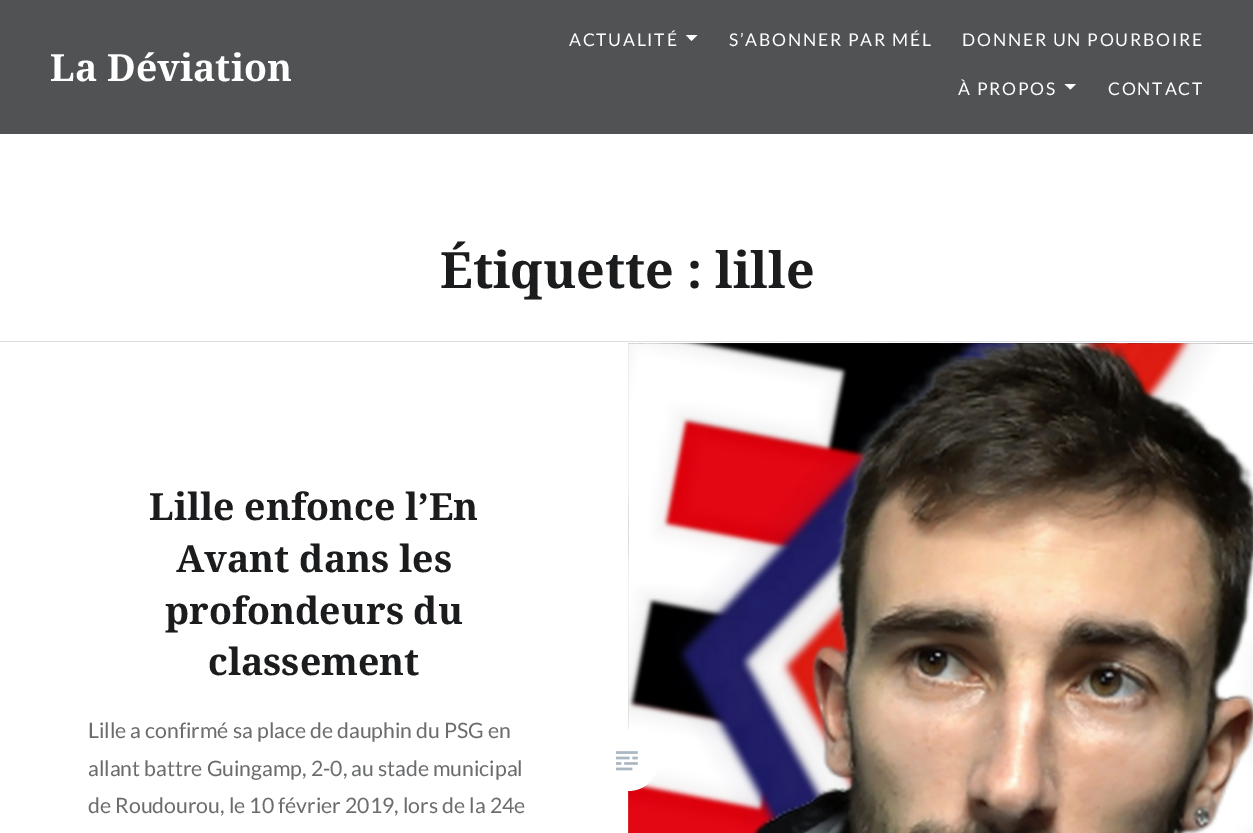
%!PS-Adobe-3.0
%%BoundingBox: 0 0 1253 833
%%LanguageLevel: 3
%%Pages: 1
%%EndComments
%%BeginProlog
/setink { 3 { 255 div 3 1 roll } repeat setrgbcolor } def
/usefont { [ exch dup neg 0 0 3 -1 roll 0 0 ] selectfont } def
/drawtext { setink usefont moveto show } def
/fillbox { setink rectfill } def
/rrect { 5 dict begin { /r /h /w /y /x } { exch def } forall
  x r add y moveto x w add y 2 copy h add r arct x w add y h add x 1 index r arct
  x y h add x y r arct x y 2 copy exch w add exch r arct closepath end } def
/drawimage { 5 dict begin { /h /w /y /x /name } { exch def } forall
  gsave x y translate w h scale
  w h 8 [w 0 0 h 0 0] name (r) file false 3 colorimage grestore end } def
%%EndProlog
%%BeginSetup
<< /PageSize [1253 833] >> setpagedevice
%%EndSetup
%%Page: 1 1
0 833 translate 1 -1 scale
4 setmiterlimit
0 0 1253 833 255 255 255 fillbox
0 0 1253 134 80 82 84 fillbox
(La Déviation) 50 81 /NotoSerif-Bold 37.5 255 255 255 drawtext
/Lato-Regular 17.5 usefont
569 46 moveto 1.75 0 (ACTUALITÉ) ashow
686 35 moveto 697.5 35 lineto 691.5 41 lineto closepath fill
729 46 moveto 1.75 0 (S’ABONNER PAR MÉL) ashow
962 46 moveto 1.75 0 (DONNER UN POURBOIRE) ashow
958 95 moveto 1.75 0 (À PROPOS) ashow
1064.5 84 moveto 1076 84 lineto 1070.5 89.5 lineto closepath fill
1108 95 moveto 1.75 0 (CONTACT) ashow
0 341 1253 1 217 223 229 fillbox
(Étiquette : lille) 440 288 /NotoSerif-Bold 50 26 28 30 drawtext
(Lille enfonce l’En) 149 520 /NotoSerif-Bold 37.5 26 28 30 drawtext
(Avant dans les) 176 572 /NotoSerif-Bold 37.5 26 28 30 drawtext
(profondeurs du) 165 624 /NotoSerif-Bold 37.5 26 28 30 drawtext
(classement) 208 675 /NotoSerif-Bold 37.5 26 28 30 drawtext
(Lille a confirmé sa place de dauphin du PSG en) 88 738 /Lato-Regular 21.25 106 108 110 drawtext
(allant battre Guingamp, 2-0, au stade municipal) 88 776 /Lato-Regular 21.25 106 108 110 drawtext
(de Roudourou, le 10 février 2019, lors de la 24e) 88 813 /Lato-Regular 21.25 106 108 110 drawtext
(assets/img2.rgb) 628 343 625 490 drawimage
255 255 255 setink
596 729 63 62 31 rrect fill
(assets/img1.rgb) 615 751 23 20 drawimage
showpage
%%EOF
